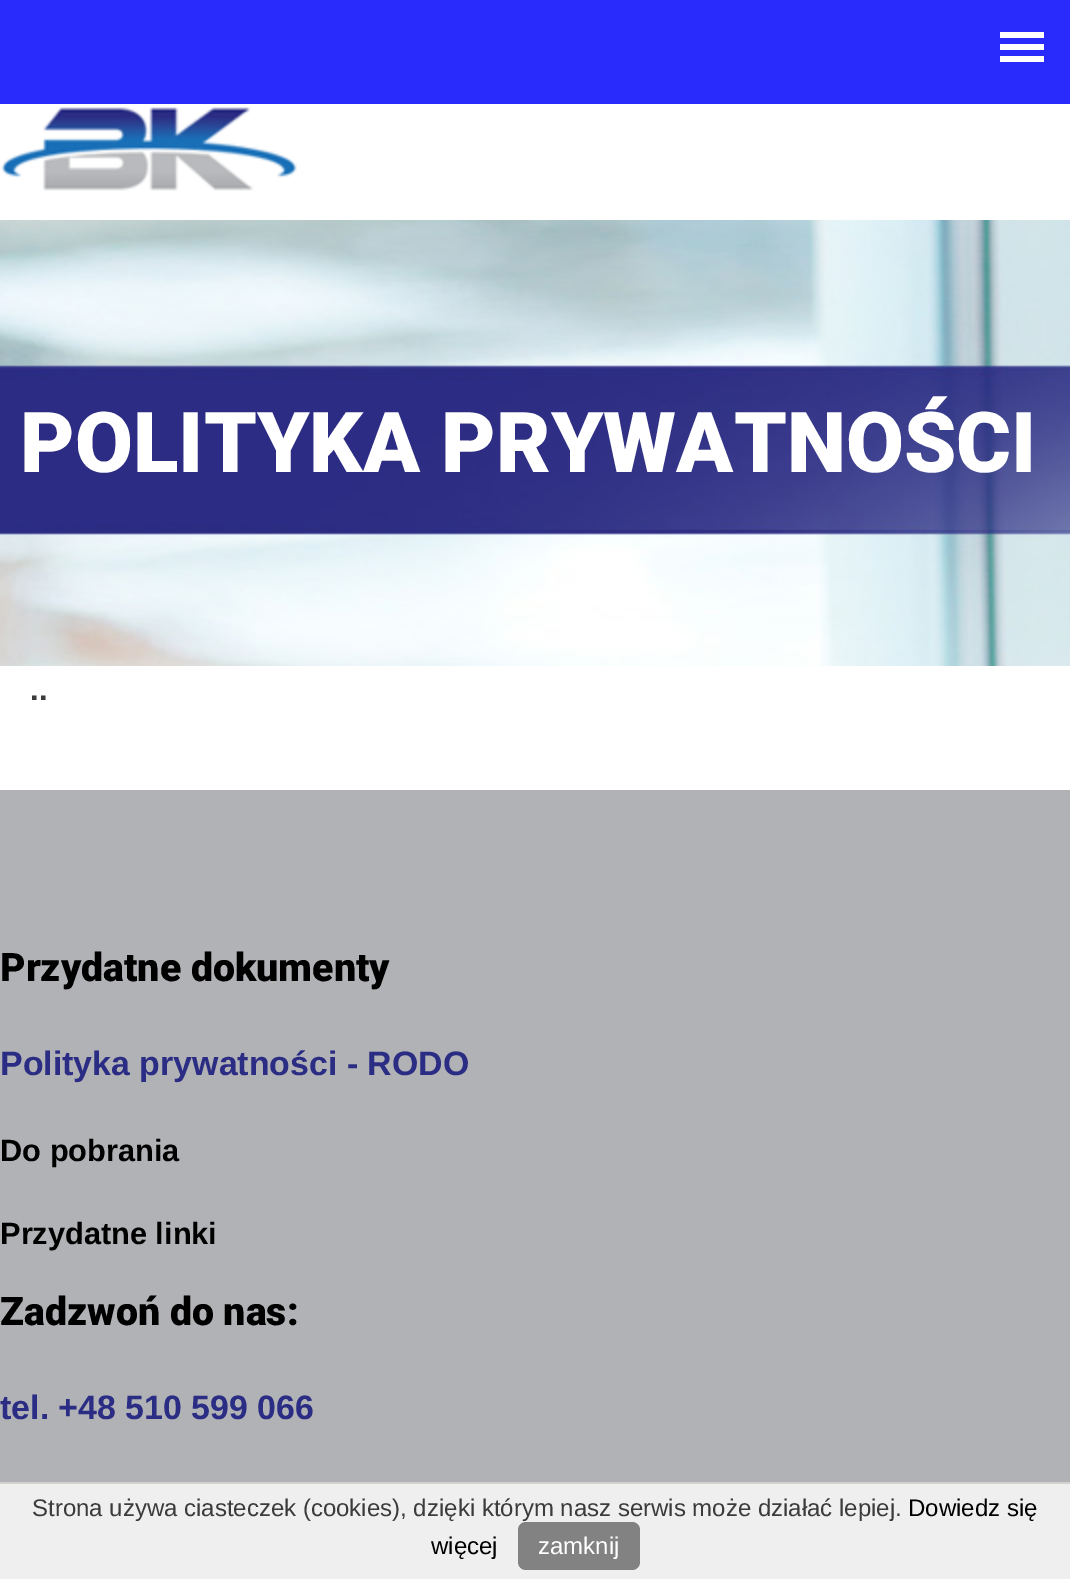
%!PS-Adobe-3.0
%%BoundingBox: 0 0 1070 1579
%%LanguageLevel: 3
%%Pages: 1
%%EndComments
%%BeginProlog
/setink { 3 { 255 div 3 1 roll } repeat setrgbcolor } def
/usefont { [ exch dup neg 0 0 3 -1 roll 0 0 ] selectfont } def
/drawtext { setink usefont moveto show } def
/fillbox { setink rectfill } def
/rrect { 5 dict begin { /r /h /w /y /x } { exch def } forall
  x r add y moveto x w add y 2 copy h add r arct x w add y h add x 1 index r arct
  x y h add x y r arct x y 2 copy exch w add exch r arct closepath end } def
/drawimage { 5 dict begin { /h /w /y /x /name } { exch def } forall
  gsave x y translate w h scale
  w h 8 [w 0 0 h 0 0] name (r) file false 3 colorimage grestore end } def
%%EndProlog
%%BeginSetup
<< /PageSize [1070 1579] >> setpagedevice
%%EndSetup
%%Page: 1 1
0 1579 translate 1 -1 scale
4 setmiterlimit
0 0 1070 1579 255 255 255 fillbox
0 0 1070 104 41 42 252 fillbox
1000 32 44 6 255 255 255 fillbox
1000 44 44 6 255 255 255 fillbox
1000 56 44 6 255 255 255 fillbox
(assets/img1.rgb) 1 107 296 84 drawimage
(assets/img2.rgb) 0 220 1070 446 drawimage
(POLITYKA PRYWATNOŚCI) 20 472 /Roboto-Black 84 255 255 255 drawtext
(..) 30 700 /LiberationSans-Bold 30.75 59 59 59 drawtext
0 790 1070 692 177 178 181 fillbox
(Przydatne dokumenty) 0 981 /Roboto-Black 39.25 0 0 0 drawtext
(Polityka prywatności - RODO) 0 1075 /LiberationSans-Bold 33.9 43 44 131 drawtext
(Do pobrania) 0 1161 /LiberationSans-Bold 30.75 0 0 0 drawtext
(Przydatne linki) 0 1244 /LiberationSans-Bold 30.75 0 0 0 drawtext
(Zadzwoń do nas:) 0 1325 /Roboto-Black 39.25 0 0 0 drawtext
(tel. +48 510 599 066) 0 1419 /LiberationSans-Bold 33.9 43 44 131 drawtext
0 1484 1070 95 239 239 239 fillbox
0 1482 1070 2 211 208 208 fillbox
(Strona używa ciasteczek \(cookies\), dzięki którym nasz serwis może działać lepiej.) 32 1516 /LiberationSans-Regular 24 59 59 59 drawtext
(Dowiedz się) 908 1516 /LiberationSans-Regular 24 0 0 0 drawtext
(więcej) 431 1554 /LiberationSans-Regular 24 0 0 0 drawtext
130 130 130 setink
518 1522 122 48 8 rrect fill
(zamknij) 538 1554 /LiberationSans-Regular 24 255 255 255 drawtext
showpage
%%EOF
